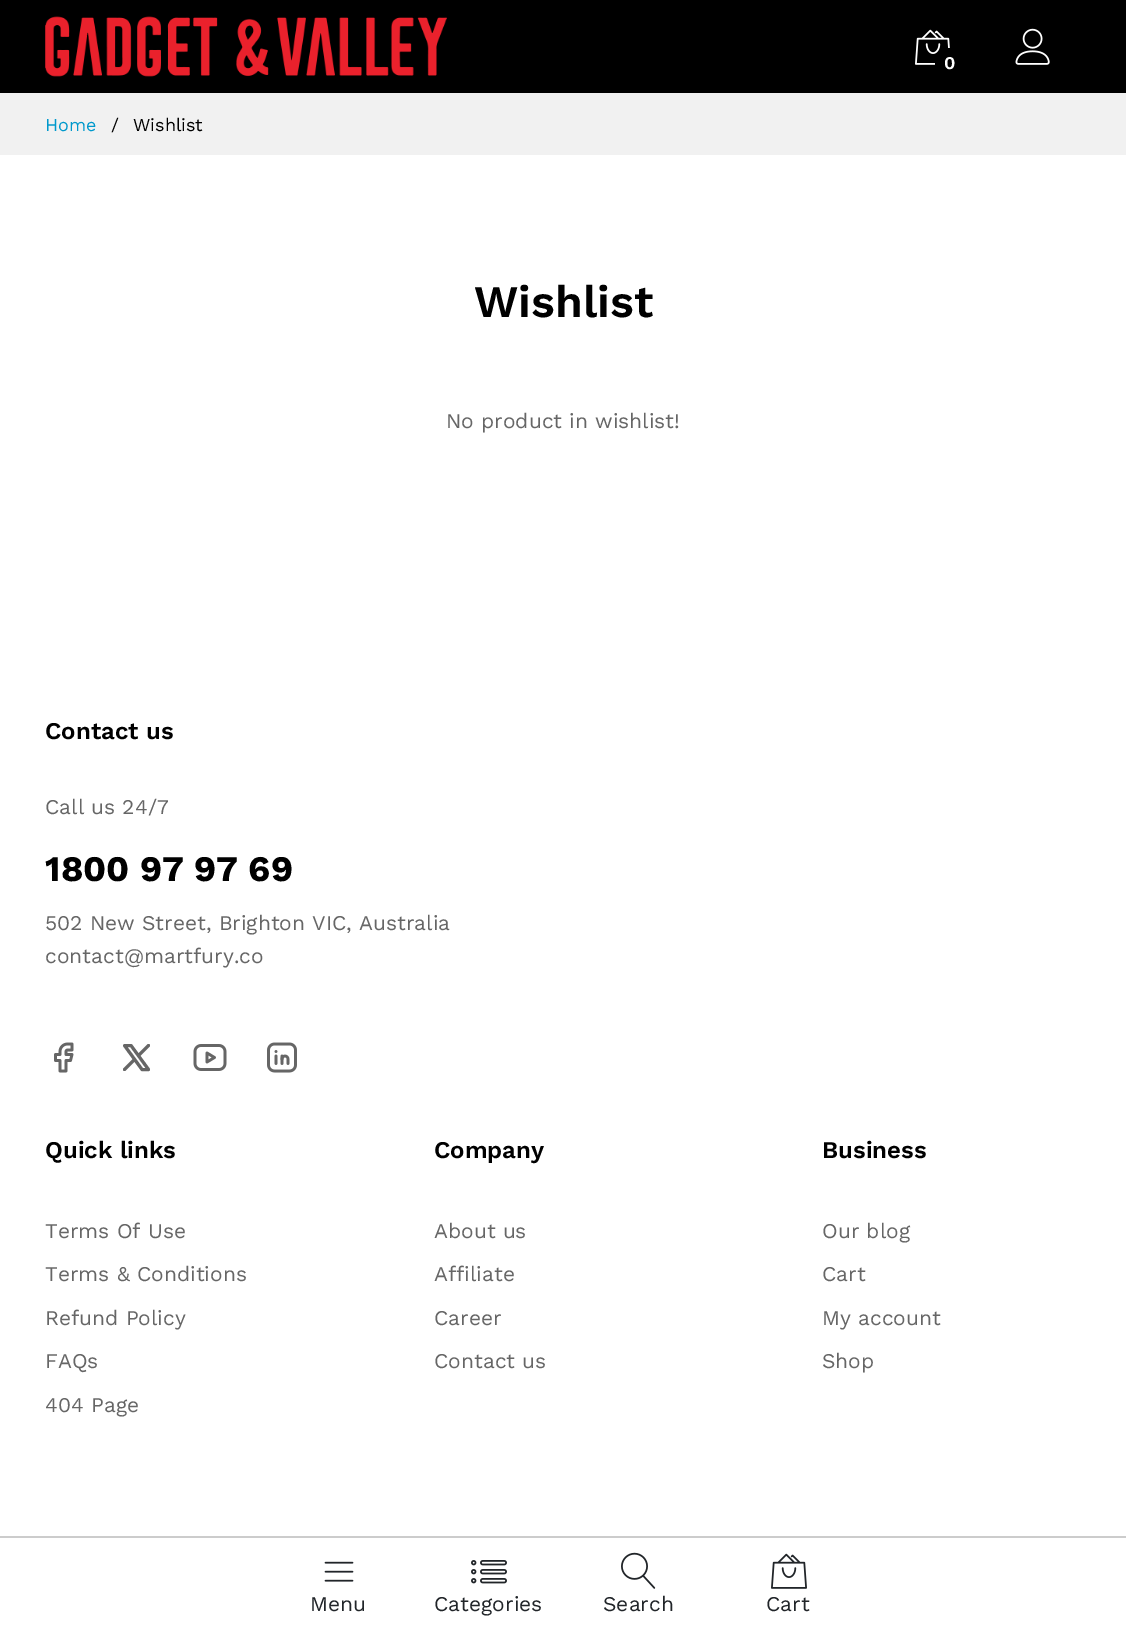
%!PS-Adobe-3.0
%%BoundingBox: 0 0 1126 1635
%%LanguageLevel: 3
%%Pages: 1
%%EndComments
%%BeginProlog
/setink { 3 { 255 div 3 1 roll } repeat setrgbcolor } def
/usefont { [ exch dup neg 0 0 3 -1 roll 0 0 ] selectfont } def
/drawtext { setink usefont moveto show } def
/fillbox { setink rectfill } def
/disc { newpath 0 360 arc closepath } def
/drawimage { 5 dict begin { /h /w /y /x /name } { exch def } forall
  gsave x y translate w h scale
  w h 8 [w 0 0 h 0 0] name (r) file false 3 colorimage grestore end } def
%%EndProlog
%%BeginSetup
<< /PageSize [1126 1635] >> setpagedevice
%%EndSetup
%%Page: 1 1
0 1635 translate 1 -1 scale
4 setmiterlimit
0 0 1126 1635 255 255 255 fillbox
0 0 1126 93 0 0 0 fillbox
(assets/img1.rgb) 45 16 402 61 drawimage
(assets/img2.rgb) 915 29 35 36 drawimage
950 63 15 disc fill
(0) 944 69 /WorkSans-SemiBold 18 255 255 255 drawtext
(assets/img3.rgb) 1015 28 35 37 drawimage
0 93 1126 62 241 241 241 fillbox
(Home) 45 131 /WorkSans-Regular 18 0 153 204 drawtext
(/) 111 131 /WorkSans-Regular 18 0 0 0 drawtext
(Wishlist) 133 131 /WorkSans-Regular 18 0 0 0 drawtext
(Wishlist) 474 317 /WorkSans-SemiBold 45 0 0 0 drawtext
(No product in wishlist!) 446 428 /WorkSans-Regular 21 102 102 102 drawtext
(Contact us) 45 739 /WorkSans-SemiBold 24 0 0 0 drawtext
(Call us 24/7) 45 814 /WorkSans-Regular 21 102 102 102 drawtext
(1800 97 97 69) 45 881 /WorkSans-Bold 36 0 0 0 drawtext
(502 New Street, Brighton VIC, Australia) 45 930 /WorkSans-Regular 21 102 102 102 drawtext
(contact@martfury.co) 45 963 /WorkSans-Regular 21 102 102 102 drawtext
(assets/img4.rgb) 54 1042 20 31 drawimage
3 setlinewidth
1 setlinecap
1 setlinejoin
124.5 1045.5 moveto 142 1069.5 lineto 148.5 1069.5 lineto 131 1045.5 lineto closepath 124.5 1069.5 moveto 134.5 1059.5 lineto 138.5 1055.5 moveto 148.5 1045.5 lineto stroke
(assets/img5.rgb) 193 1044 34 27 drawimage
(assets/img6.rgb) 267 1042 30 31 drawimage
(Quick links) 45 1158 /WorkSans-SemiBold 24 0 0 0 drawtext
(Terms Of Use) 45 1238 /WorkSans-Regular 21 102 102 102 drawtext
(Terms & Conditions) 45 1281 /WorkSans-Regular 21 102 102 102 drawtext
(Refund Policy) 45 1325 /WorkSans-Regular 21 102 102 102 drawtext
(FAQs) 45 1368 /WorkSans-Regular 21 102 102 102 drawtext
(404 Page) 45 1412 /WorkSans-Regular 21 102 102 102 drawtext
(Company) 434 1158 /WorkSans-SemiBold 24 0 0 0 drawtext
(About us) 434 1238 /WorkSans-Regular 21 102 102 102 drawtext
(Affiliate) 434 1281 /WorkSans-Regular 21 102 102 102 drawtext
(Career) 434 1325 /WorkSans-Regular 21 102 102 102 drawtext
(Contact us) 434 1368 /WorkSans-Regular 21 102 102 102 drawtext
(Business) 822 1158 /WorkSans-SemiBold 24 0 0 0 drawtext
(Our blog) 822 1238 /WorkSans-Regular 21 102 102 102 drawtext
(Cart) 822 1281 /WorkSans-Regular 21 102 102 102 drawtext
(My account) 822 1325 /WorkSans-Regular 21 102 102 102 drawtext
(Shop) 822 1368 /WorkSans-Regular 21 102 102 102 drawtext
0 1536 1126 2 204 204 204 fillbox
(assets/img7.rgb) 324 1561 30 21 drawimage
(Menu) 310 1611 /WorkSans-Regular 21 33 37 41 drawtext
(assets/img8.rgb) 471 1560 36 24 drawimage
(Categories) 434 1611 /WorkSans-Regular 21 33 37 41 drawtext
(assets/img9.rgb) 621 1552 35 37 drawimage
(Search) 603 1611 /WorkSans-Regular 21 33 37 41 drawtext
(assets/img10.rgb) 771 1553 36 36 drawimage
(Cart) 766 1611 /WorkSans-Regular 21 33 37 41 drawtext
showpage
%%EOF
